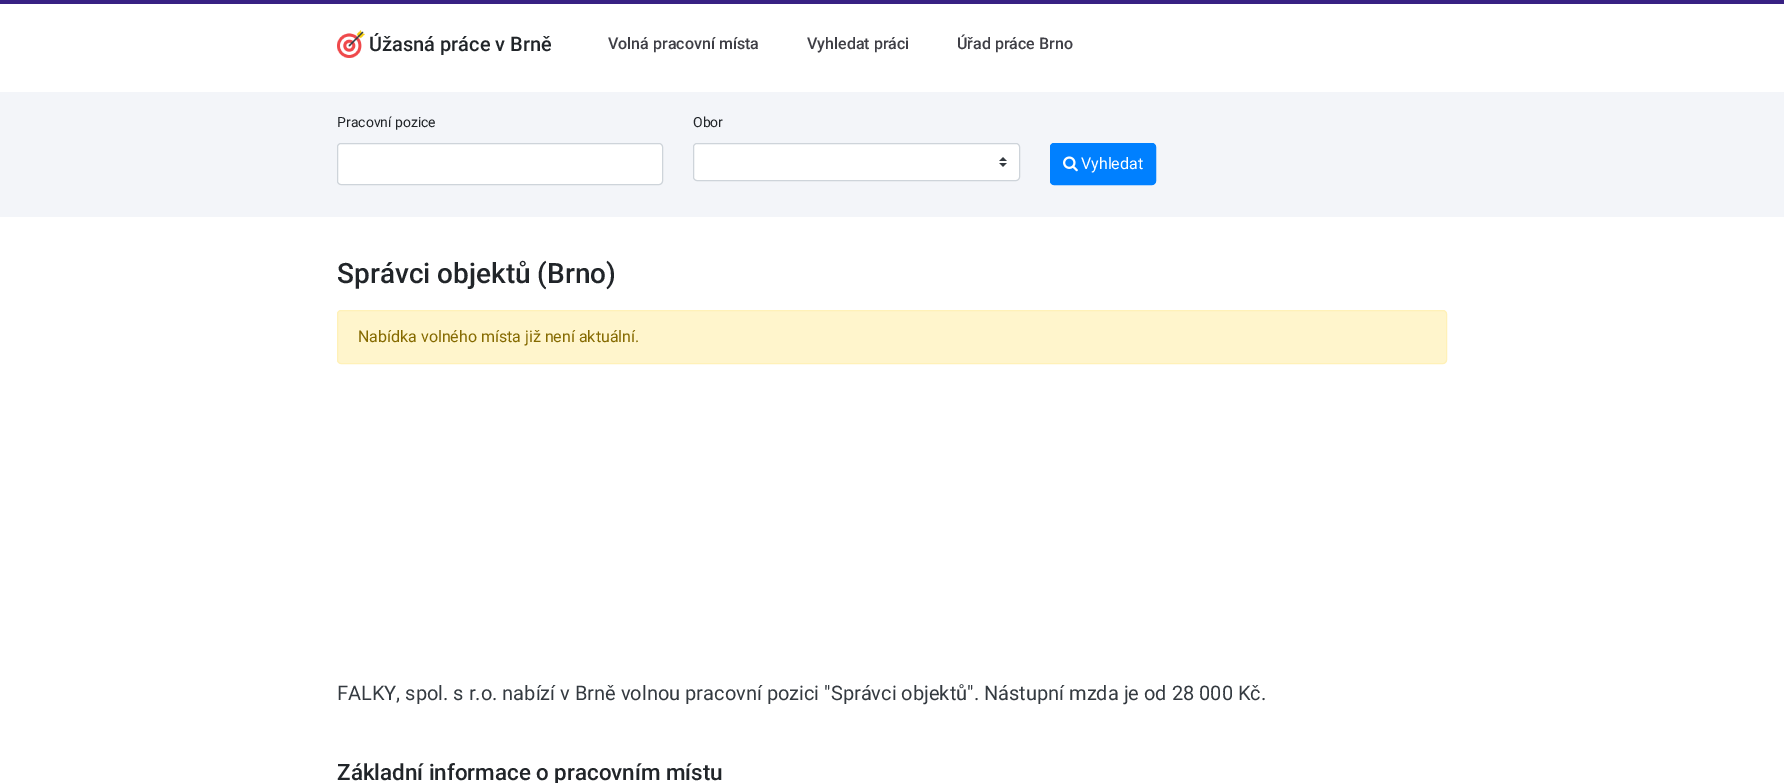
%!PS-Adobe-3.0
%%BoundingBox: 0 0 1784 783
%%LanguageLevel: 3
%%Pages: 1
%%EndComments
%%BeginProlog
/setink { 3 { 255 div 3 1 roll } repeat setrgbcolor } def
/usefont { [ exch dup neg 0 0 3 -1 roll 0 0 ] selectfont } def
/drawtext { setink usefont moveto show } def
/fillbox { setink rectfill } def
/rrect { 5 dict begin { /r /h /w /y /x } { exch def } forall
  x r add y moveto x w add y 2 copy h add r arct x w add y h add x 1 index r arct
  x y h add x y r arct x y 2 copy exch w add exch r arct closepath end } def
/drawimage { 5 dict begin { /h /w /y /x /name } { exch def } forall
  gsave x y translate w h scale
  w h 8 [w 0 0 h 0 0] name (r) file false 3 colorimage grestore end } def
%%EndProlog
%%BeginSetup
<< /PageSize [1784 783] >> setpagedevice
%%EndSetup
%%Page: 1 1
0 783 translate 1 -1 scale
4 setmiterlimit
0 0 1784 783 255 255 255 fillbox
0 0 1784 4 56 33 131 fillbox
(assets/img1.rgb) 337 30 28 28 drawimage
(Úžasná práce v Brně) 369 51 /Roboto-Medium 20 33 37 41 drawtext
(Volná pracovní místa) 608 49 /Roboto-Medium 16 63 63 70 drawtext
(Vyhledat práci) 807 49 /Roboto-Medium 16 63 63 70 drawtext
(Úřad práce Brno) 957 49 /Roboto-Medium 16 63 63 70 drawtext
0 92 1784 125 243 245 249 fillbox
(Pracovní pozice) 337 127 /Roboto-Regular 14 33 37 41 drawtext
255 255 255 setink
337.5 143.5 325 41 3.5 rrect gsave fill grestore
206 212 218 setink
stroke
(Obor) 693 127 /Roboto-Regular 14 33 37 41 drawtext
255 255 255 setink
693 143 327 38 4 rrect fill
(assets/img2.rgb) 999 157 8 10 drawimage
206 212 218 setink
693.5 143.5 326 37 3.5 rrect stroke
0 128 255 setink
1050.5 143.5 105 41 3.5 rrect gsave fill grestore
stroke
(assets/img3.rgb) 1063 156 15 16 drawimage
(Vyhledat) 1081 169 /Roboto-Regular 16 255 255 255 drawtext
(Správci objektů \(Brno\)) 337 283 /Roboto-Medium 28 33 37 41 drawtext
255 245 204 setink
337.5 310.5 1109 53 3.5 rrect gsave fill grestore
255 241 184 setink
stroke
(Nabídka volného místa již není aktuální.) 358 342 /Roboto-Regular 16 133 106 0 drawtext
(FALKY, spol. s r.o. nabízí v Brně volnou pracovní pozici "Správci objektů". Nástupní mzda je od 28 000 Kč.) 337 700 /Roboto-Regular 20 52 58 64 drawtext
(Základní informace o pracovním místu) 337 780 /Roboto-Medium 22.4 33 37 41 drawtext
showpage
%%EOF
